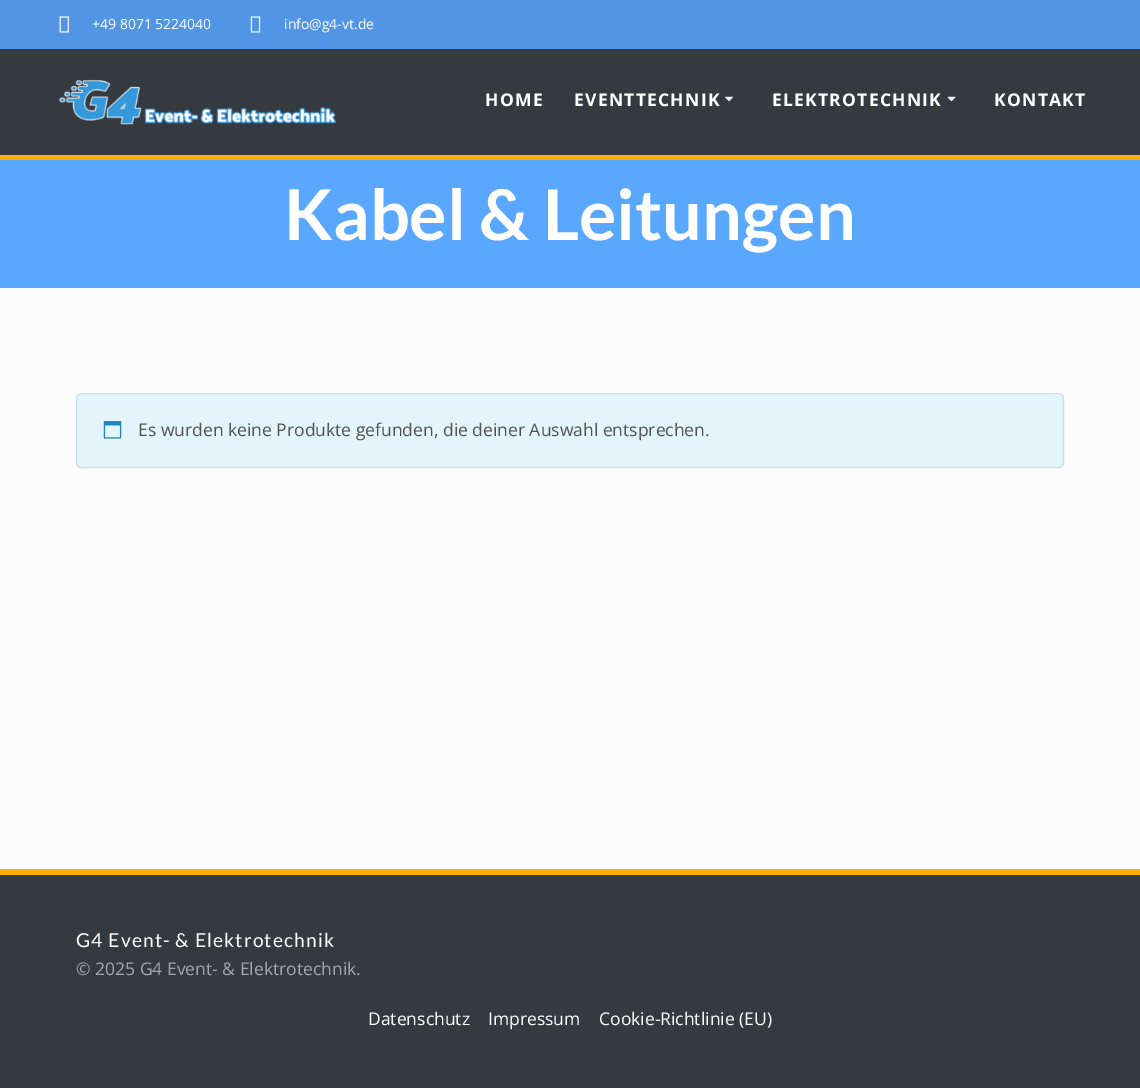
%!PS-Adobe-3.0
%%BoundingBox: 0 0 1140 1088
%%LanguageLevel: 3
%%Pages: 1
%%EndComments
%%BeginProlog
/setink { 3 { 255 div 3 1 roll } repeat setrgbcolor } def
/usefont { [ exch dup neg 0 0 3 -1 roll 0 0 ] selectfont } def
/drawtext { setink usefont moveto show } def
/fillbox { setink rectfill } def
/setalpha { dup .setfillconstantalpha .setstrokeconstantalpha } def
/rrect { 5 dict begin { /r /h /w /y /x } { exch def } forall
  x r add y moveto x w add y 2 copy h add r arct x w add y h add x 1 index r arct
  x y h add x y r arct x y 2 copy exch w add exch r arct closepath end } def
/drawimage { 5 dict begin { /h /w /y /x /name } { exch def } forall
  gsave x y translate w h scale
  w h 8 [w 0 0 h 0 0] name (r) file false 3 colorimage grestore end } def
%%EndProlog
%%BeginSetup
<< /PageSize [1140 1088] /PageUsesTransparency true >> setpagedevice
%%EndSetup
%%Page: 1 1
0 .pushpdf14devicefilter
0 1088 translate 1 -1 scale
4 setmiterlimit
0 0 1140 1088 252 252 252 fillbox
0 0 1140 49 83 149 229 fillbox
(assets/img1.rgb) 59 16 10 17 drawimage
(+49 8071 5224040) 92 29 /OpenSans-Regular 14 255 255 255 drawtext
(assets/img2.rgb) 250 16 11 17 drawimage
(info@g4-vt.de) 284 29 /OpenSans-Regular 14 255 255 255 drawtext
0 49 1140 106 52 58 64 fillbox
0 155 1140 5 252 176 6 fillbox
(assets/img3.rgb) 58 79 278 46 drawimage
/OpenSans-Bold 17.5 usefont
255 255 255 setink
485 106 moveto 1.25 0 (HOME) ashow
574 106 moveto 1.25 0 (EVENTTECHNIK) ashow
(assets/img4.rgb) 725 96 8 6 drawimage
772 106 moveto 1.25 0 (ELEKTROTECHNIK) ashow
(assets/img5.rgb) 947 96 9 6 drawimage
994 106 moveto 1.25 0 (KONTAKT) ashow
0 160 1140 128 90 167 255 fillbox
(Kabel & Leitungen) 284 240 /Lato-Bold 70 255 255 255 drawtext
227 244 251 setink
76 393 988 75 5 rrect fill
0.2 setalpha
74 144 226 setink
76.5 393.5 987 74 4.5 rrect stroke
1 setalpha
(assets/img6.rgb) 103 421 19 18 drawimage
(Es wurden keine Produkte gefunden, die deiner Auswahl entsprechen.) 138 436 /OpenSans-Regular 17.5 81 81 81 drawtext
0 875 1140 213 52 58 64 fillbox
0 869 1140 6 252 176 6 fillbox
/Lato-Regular 19.25 usefont
255 255 255 setink
76 947 moveto 1.1 0 (G4 Event- & Elektrotechnik) ashow
(© 2025 G4 Event- & Elektrotechnik.) 76 975 /OpenSans-Regular 17.5 164 166 169 drawtext
(Datenschutz) 368 1025 /OpenSans-Regular 17.5 255 255 255 drawtext
(Impressum) 488 1025 /OpenSans-Regular 17.5 255 255 255 drawtext
(Cookie-Richtlinie \(EU\)) 599 1025 /OpenSans-Regular 17.5 255 255 255 drawtext
.poppdf14devicefilter showpage
%%EOF
